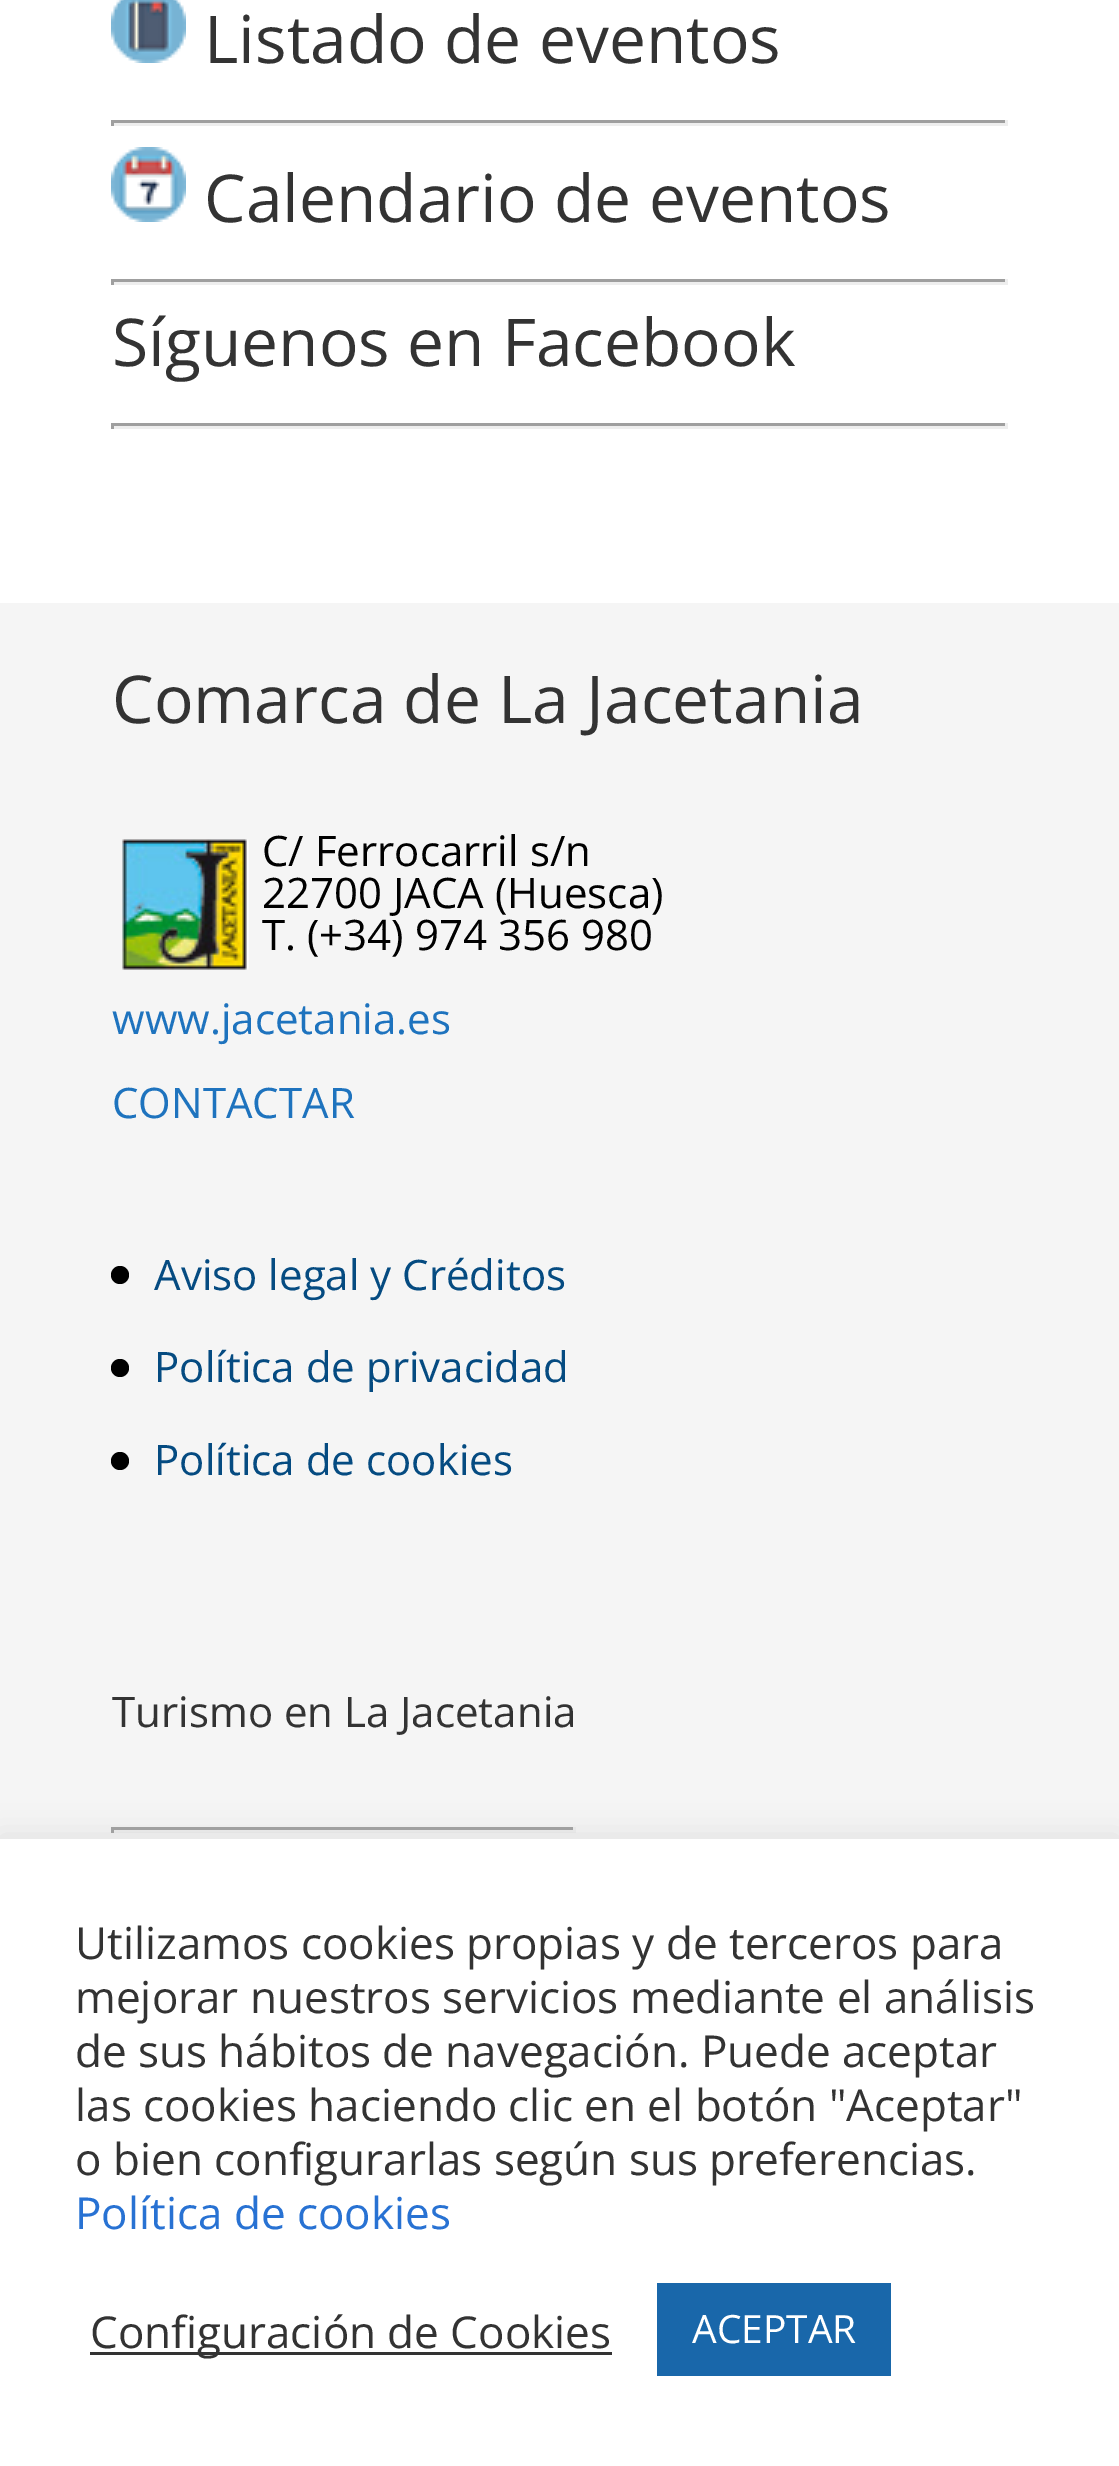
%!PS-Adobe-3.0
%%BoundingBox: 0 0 1119 2466
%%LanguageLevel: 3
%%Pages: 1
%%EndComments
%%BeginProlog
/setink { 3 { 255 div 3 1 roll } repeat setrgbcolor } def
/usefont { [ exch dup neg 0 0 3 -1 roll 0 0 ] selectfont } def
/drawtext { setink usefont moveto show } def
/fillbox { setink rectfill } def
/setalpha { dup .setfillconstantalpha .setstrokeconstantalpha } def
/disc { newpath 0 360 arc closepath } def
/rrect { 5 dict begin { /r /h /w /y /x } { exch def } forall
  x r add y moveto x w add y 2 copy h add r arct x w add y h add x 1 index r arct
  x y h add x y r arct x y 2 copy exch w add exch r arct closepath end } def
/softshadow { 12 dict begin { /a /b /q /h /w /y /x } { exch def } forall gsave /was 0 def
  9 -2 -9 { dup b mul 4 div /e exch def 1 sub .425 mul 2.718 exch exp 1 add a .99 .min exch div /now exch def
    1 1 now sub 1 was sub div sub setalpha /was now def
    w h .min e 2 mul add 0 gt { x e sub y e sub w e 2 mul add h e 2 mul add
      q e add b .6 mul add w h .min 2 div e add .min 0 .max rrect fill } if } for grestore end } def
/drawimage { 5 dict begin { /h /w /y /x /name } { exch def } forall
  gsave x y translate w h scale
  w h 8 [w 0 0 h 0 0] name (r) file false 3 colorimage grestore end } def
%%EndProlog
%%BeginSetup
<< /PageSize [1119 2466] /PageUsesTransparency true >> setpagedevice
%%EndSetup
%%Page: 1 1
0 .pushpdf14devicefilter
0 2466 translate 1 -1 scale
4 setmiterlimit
0 0 1119 2466 255 255 255 fillbox
(assets/img1.rgb) 111 0 75 63 drawimage
(Listado de eventos) 204 63 /OpenSans-Regular 66 51 51 51 drawtext
111 120 897 3 159 159 159 fillbox
1005 120 3 6 238 238 238 fillbox
111 123 897 3 238 238 238 fillbox
111 120 3 6 159 159 159 fillbox
(assets/img2.rgb) 111 147 75 75 drawimage
(Calendario de eventos) 204 222 /OpenSans-Regular 66 51 51 51 drawtext
111 279 897 3 159 159 159 fillbox
1005 279 3 6 238 238 238 fillbox
111 282 897 3 238 238 238 fillbox
111 279 3 6 159 159 159 fillbox
(Síguenos en Facebook) 112 366 /OpenSans-Regular 66 51 51 51 drawtext
111 423 897 3 159 159 159 fillbox
1005 423 3 6 238 238 238 fillbox
111 426 897 3 238 238 238 fillbox
111 423 3 6 159 159 159 fillbox
0 603 1119 1236 245 245 245 fillbox
(Comarca de La Jacetania) 112 723 /OpenSans-Regular 66 51 51 51 drawtext
(assets/img3.rgb) 122 839 127 131 drawimage
(C/ Ferrocarril s/n) 262 866 /OpenSans-Regular 42 0 0 0 drawtext
(22700 JACA \(Huesca\)) 262 908 /OpenSans-Regular 42 0 0 0 drawtext
(T. \(+34\) 974 356 980) 262 950 /OpenSans-Regular 42 0 0 0 drawtext
(www.jacetania.es) 112 1034 /OpenSans-Regular 42 30 115 190 drawtext
(CONTACTAR) 112 1118 /OpenSans-Regular 42 30 115 190 drawtext
0 0 0 setink
120 1275 9 disc fill
(Aviso legal y Créditos) 154 1290 /OpenSans-Regular 42 5 75 129 drawtext
0 0 0 setink
120 1368 9 disc fill
(Política de privacidad) 154 1382 /OpenSans-Regular 42 5 75 129 drawtext
0 0 0 setink
120 1461 9 disc fill
(Política de cookies) 154 1475 /OpenSans-Regular 42 5 75 129 drawtext
(Turismo en La Jacetania) 112 1727 /OpenSans-Regular 42 51 51 51 drawtext
111 1827 465 3 159 159 159 fillbox
573 1827 3 6 238 238 238 fillbox
111 1830 465 3 238 238 238 fillbox
111 1827 3 6 159 159 159 fillbox
172 171 171 setink
0 1836 1119 627 0 15 0.3 softshadow
0 1839 1119 627 255 255 255 fillbox
(Utilizamos cookies propias y de terceros para) 75 1959 /OpenSans-Regular 44 51 51 51 drawtext
(mejorar nuestros servicios mediante el análisis) 75 2013 /OpenSans-Regular 44 51 51 51 drawtext
(de sus hábitos de navegación. Puede aceptar) 75 2067 /OpenSans-Regular 44 51 51 51 drawtext
(las cookies haciendo clic en el botón "Aceptar") 75 2121 /OpenSans-Regular 44 51 51 51 drawtext
(o bien configurarlas según sus preferencias.) 75 2175 /OpenSans-Regular 44 51 51 51 drawtext
(Política de cookies) 75 2229 /OpenSans-Regular 44 40 114 211 drawtext
90 2352 522 3 51 51 51 fillbox
(Configuración de Cookies) 90 2348 /OpenSans-Regular 44 51 51 51 drawtext
657 2283 234 93 25 103 170 fillbox
(ACEPTAR) 692 2343 /OpenSans-Regular 39 255 255 255 drawtext
.poppdf14devicefilter showpage
%%EOF
